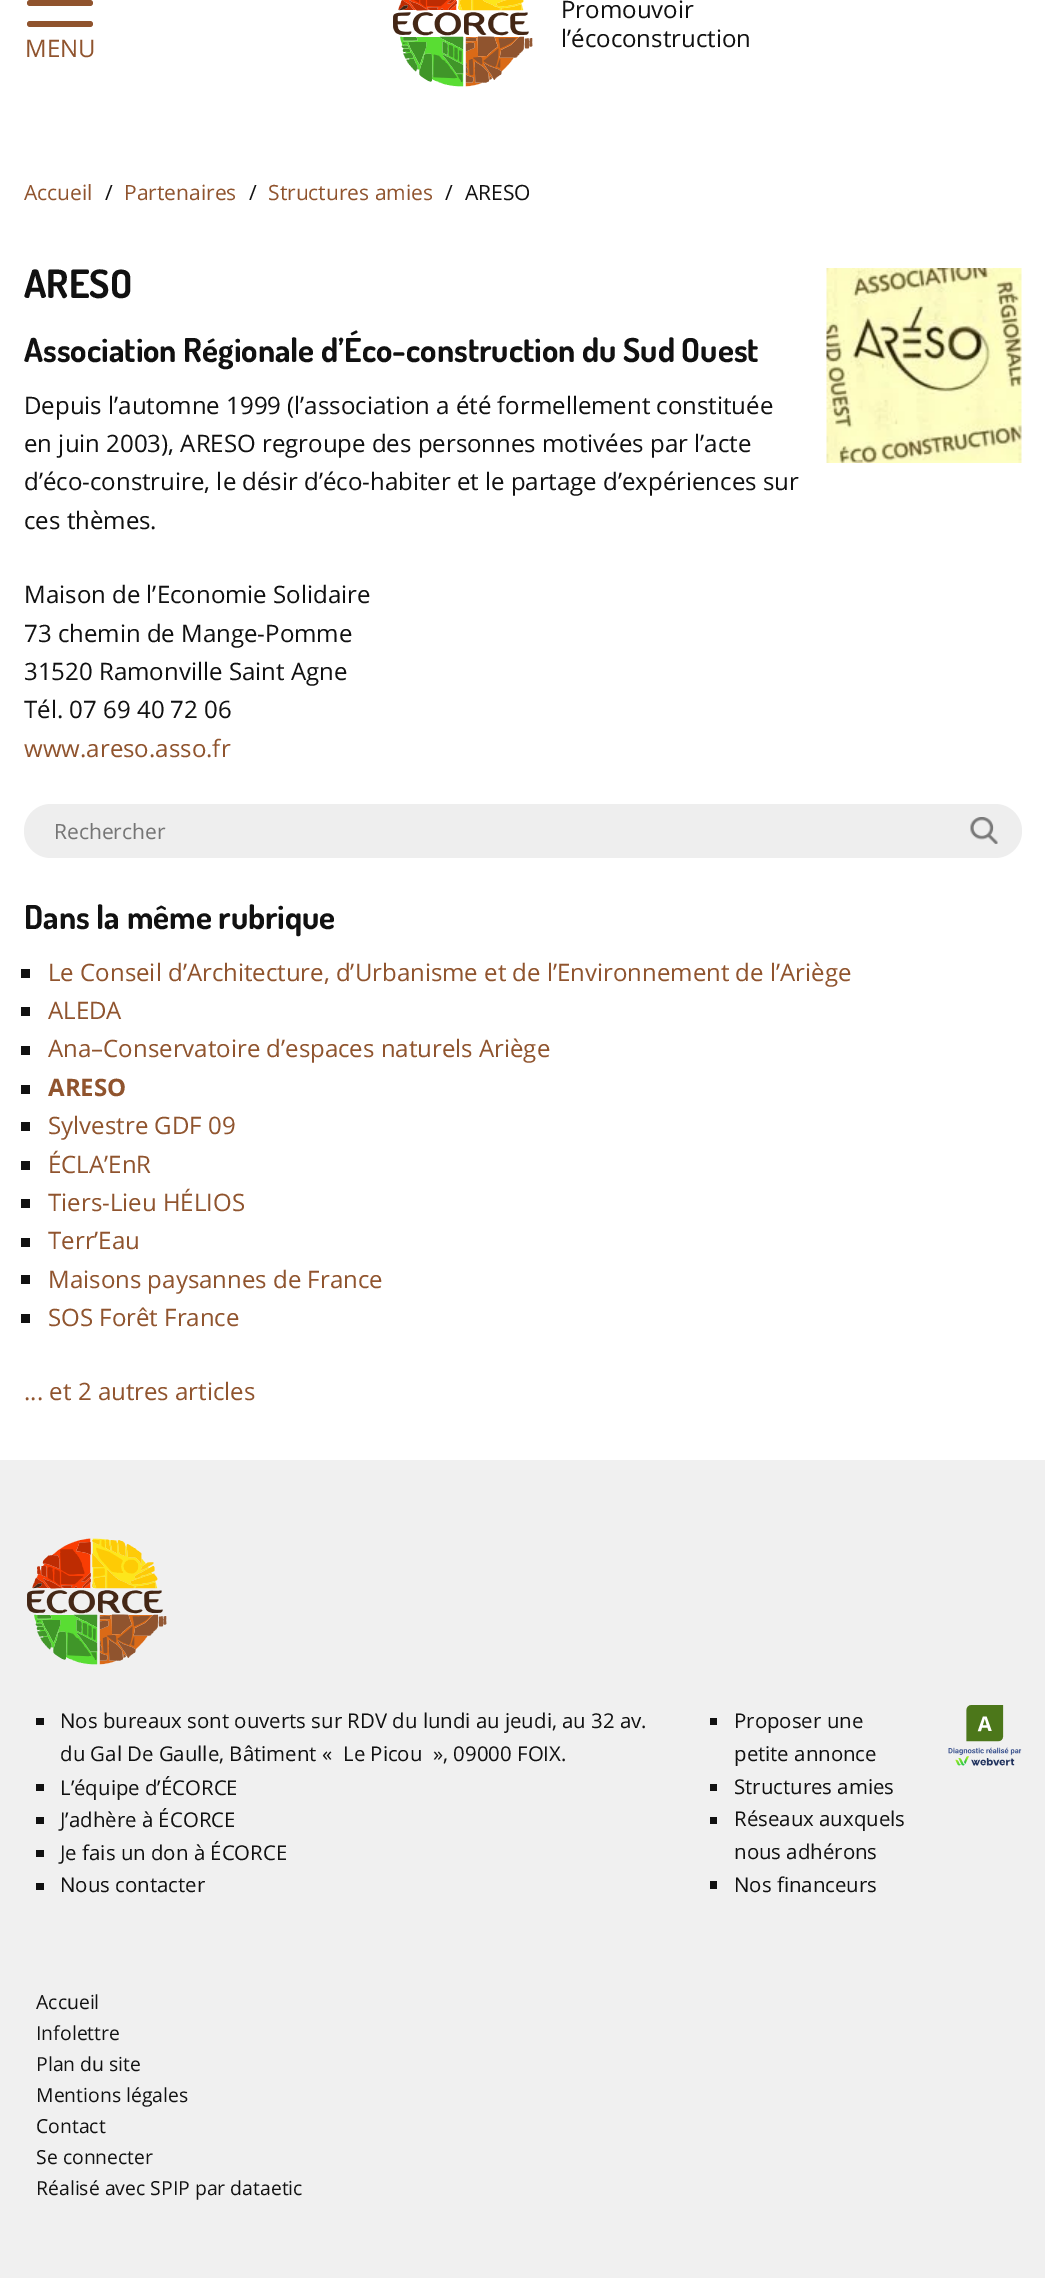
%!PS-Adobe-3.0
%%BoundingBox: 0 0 1045 2278
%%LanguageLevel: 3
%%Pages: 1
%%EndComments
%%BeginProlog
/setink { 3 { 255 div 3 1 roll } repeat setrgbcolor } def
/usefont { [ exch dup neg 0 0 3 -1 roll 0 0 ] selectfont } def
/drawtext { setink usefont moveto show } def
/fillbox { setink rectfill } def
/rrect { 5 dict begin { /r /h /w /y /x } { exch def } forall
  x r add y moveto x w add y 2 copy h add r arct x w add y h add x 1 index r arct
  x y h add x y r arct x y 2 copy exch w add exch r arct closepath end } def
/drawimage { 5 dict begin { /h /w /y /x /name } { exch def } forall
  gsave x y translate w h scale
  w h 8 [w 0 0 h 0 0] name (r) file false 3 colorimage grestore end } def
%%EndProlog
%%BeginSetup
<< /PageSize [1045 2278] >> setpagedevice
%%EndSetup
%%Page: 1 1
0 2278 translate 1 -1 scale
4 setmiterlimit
0 0 1045 2278 255 255 255 fillbox
144 84 46 setink
27 21 66 6 3 rrect fill
27 0 66 6 3 rrect fill
(MENU) 25 57 /OpenSans-Regular 24 144 84 46 drawtext
(assets/img1.rgb) 393 0 140 87 drawimage
(Promouvoir) 561 18 /OpenSans-Regular 24 17 17 17 drawtext
(l’écoconstruction) 561 47 /OpenSans-Regular 24 17 17 17 drawtext
(Accueil) 24 200 /OpenSans-Regular 21 144 84 46 drawtext
(/) 105 200 /OpenSans-Regular 21 17 17 17 drawtext
(Partenaires) 124 200 /OpenSans-Regular 21 144 84 46 drawtext
(/) 249 200 /OpenSans-Regular 21 17 17 17 drawtext
(Structures amies) 268 200 /OpenSans-Regular 21 144 84 46 drawtext
(/) 445 200 /OpenSans-Regular 21 17 17 17 drawtext
(ARESO) 465 200 /OpenSans-Regular 21 17 17 17 drawtext
(ARESO) 24 298 /Dosis-Bold 39 17 17 17 drawtext
(assets/img2.rgb) 826 268 196 195 drawimage
(Association Régionale d’Éco-construction du Sud Ouest) 24 362 /Dosis-Bold 33 17 17 17 drawtext
(Depuis l’automne 1999 \(l’association a été formellement constituée) 24 414 /OpenSans-Regular 24 17 17 17 drawtext
(en juin 2003\), ARESO regroupe des personnes motivées par l’acte) 24 452 /OpenSans-Regular 24 17 17 17 drawtext
(d’éco-construire, le désir d’éco-habiter et le partage d’expériences sur) 24 490 /OpenSans-Regular 24 17 17 17 drawtext
(ces thèmes.) 24 529 /OpenSans-Regular 24 17 17 17 drawtext
(Maison de l’Economie Solidaire) 24 603 /OpenSans-Regular 24 17 17 17 drawtext
(73 chemin de Mange-Pomme) 24 642 /OpenSans-Regular 24 17 17 17 drawtext
(31520 Ramonville Saint Agne) 24 680 /OpenSans-Regular 24 17 17 17 drawtext
(Tél. 07 69 40 72 06) 24 718 /OpenSans-Regular 24 17 17 17 drawtext
(www.areso.asso.fr) 24 757 /OpenSans-Regular 24 144 84 46 drawtext
238 238 238 setink
24 804 998 54 27 rrect fill
(Rechercher) 54 839 /OpenSans-Regular 21 117 117 117 drawtext
(assets/img3.rgb) 970 817 28 27 drawimage
(Dans la même rubrique) 24 929 /Dosis-Bold 33 17 17 17 drawtext
21 969 9 9 17 17 17 fillbox
(Le Conseil d’Architecture, d’Urbanisme et de l’Environnement de l’Ariège) 48 981 /OpenSans-Regular 24 144 84 46 drawtext
21 1007 9 9 17 17 17 fillbox
(ALEDA) 48 1019 /OpenSans-Regular 24 144 84 46 drawtext
21 1046 9 9 17 17 17 fillbox
(Ana–Conservatoire d’espaces naturels Ariège) 48 1057 /OpenSans-Regular 24 144 84 46 drawtext
21 1085 9 9 17 17 17 fillbox
(ARESO) 48 1096 /OpenSans-Bold 24 144 84 46 drawtext
21 1122 9 9 17 17 17 fillbox
(Sylvestre GDF 09) 48 1134 /OpenSans-Regular 24 144 84 46 drawtext
21 1161 9 9 17 17 17 fillbox
(ÉCLA’EnR) 48 1173 /OpenSans-Regular 24 144 84 46 drawtext
21 1199 9 9 17 17 17 fillbox
(Tiers-Lieu HÉLIOS) 48 1211 /OpenSans-Regular 24 144 84 46 drawtext
21 1238 9 9 17 17 17 fillbox
(Terr’Eau) 48 1249 /OpenSans-Regular 24 144 84 46 drawtext
21 1275 9 9 17 17 17 fillbox
(Maisons paysannes de France) 48 1288 /OpenSans-Regular 24 144 84 46 drawtext
21 1314 9 9 17 17 17 fillbox
(SOS Forêt France) 48 1326 /OpenSans-Regular 24 144 84 46 drawtext
(... et 2 autres articles) 24 1400 /OpenSans-Regular 24 144 84 46 drawtext
0 1460 1045 818 240 240 240 fillbox
(assets/img4.rgb) 27 1538 140 127 drawimage
36 1718 8 7 17 17 17 fillbox
(Nos bureaux sont ouverts sur RDV du lundi au jeudi, au 32 av.) 60 1728 /OpenSans-Regular 20.4 17 17 17 drawtext
(du Gal De Gaulle, Bâtiment «) 60 1761 /OpenSans-Regular 20.4 17 17 17 drawtext
(Le Picou) 343 1761 /OpenSans-Regular 20.4 17 17 17 drawtext
(», 09000 FOIX.) 433 1761 /OpenSans-Regular 20.4 17 17 17 drawtext
36 1784 8 7 17 17 17 fillbox
(L’équipe d’ÉCORCE) 60 1795 /OpenSans-Regular 20.4 17 17 17 drawtext
36 1817 8 7 17 17 17 fillbox
(J’adhère à ÉCORCE) 60 1827 /OpenSans-Regular 20.4 17 17 17 drawtext
36 1850 8 7 17 17 17 fillbox
(Je fais un don à ÉCORCE) 60 1860 /OpenSans-Regular 20.4 17 17 17 drawtext
36 1883 8 7 17 17 17 fillbox
(Nous contacter) 60 1892 /OpenSans-Regular 20.4 17 17 17 drawtext
710 1718 7 7 17 17 17 fillbox
(Proposer une) 734 1728 /OpenSans-Regular 20.4 17 17 17 drawtext
(petite annonce) 734 1761 /OpenSans-Regular 20.4 17 17 17 drawtext
710 1784 7 7 17 17 17 fillbox
(Structures amies) 734 1794 /OpenSans-Regular 20.4 17 17 17 drawtext
710 1817 7 7 17 17 17 fillbox
(Réseaux auxquels) 734 1826 /OpenSans-Regular 20.4 17 17 17 drawtext
(nous adhérons) 734 1859 /OpenSans-Regular 20.4 17 17 17 drawtext
710 1881 7 8 17 17 17 fillbox
(Nos financeurs) 734 1892 /OpenSans-Regular 20.4 17 17 17 drawtext
(assets/img5.rgb) 948 1705 74 61 drawimage
(Accueil) 36 2009 /OpenSans-Regular 19.4 17 17 17 drawtext
(Infolettre) 36 2040 /OpenSans-Regular 19.4 17 17 17 drawtext
(Plan du site) 36 2071 /OpenSans-Regular 19.4 17 17 17 drawtext
(Mentions légales) 36 2102 /OpenSans-Regular 19.4 17 17 17 drawtext
(Contact) 36 2133 /OpenSans-Regular 19.4 17 17 17 drawtext
(Se connecter) 36 2164 /OpenSans-Regular 19.4 17 17 17 drawtext
(Réalisé avec SPIP par dataetic) 36 2195 /OpenSans-Regular 19.4 17 17 17 drawtext
showpage
%%EOF
